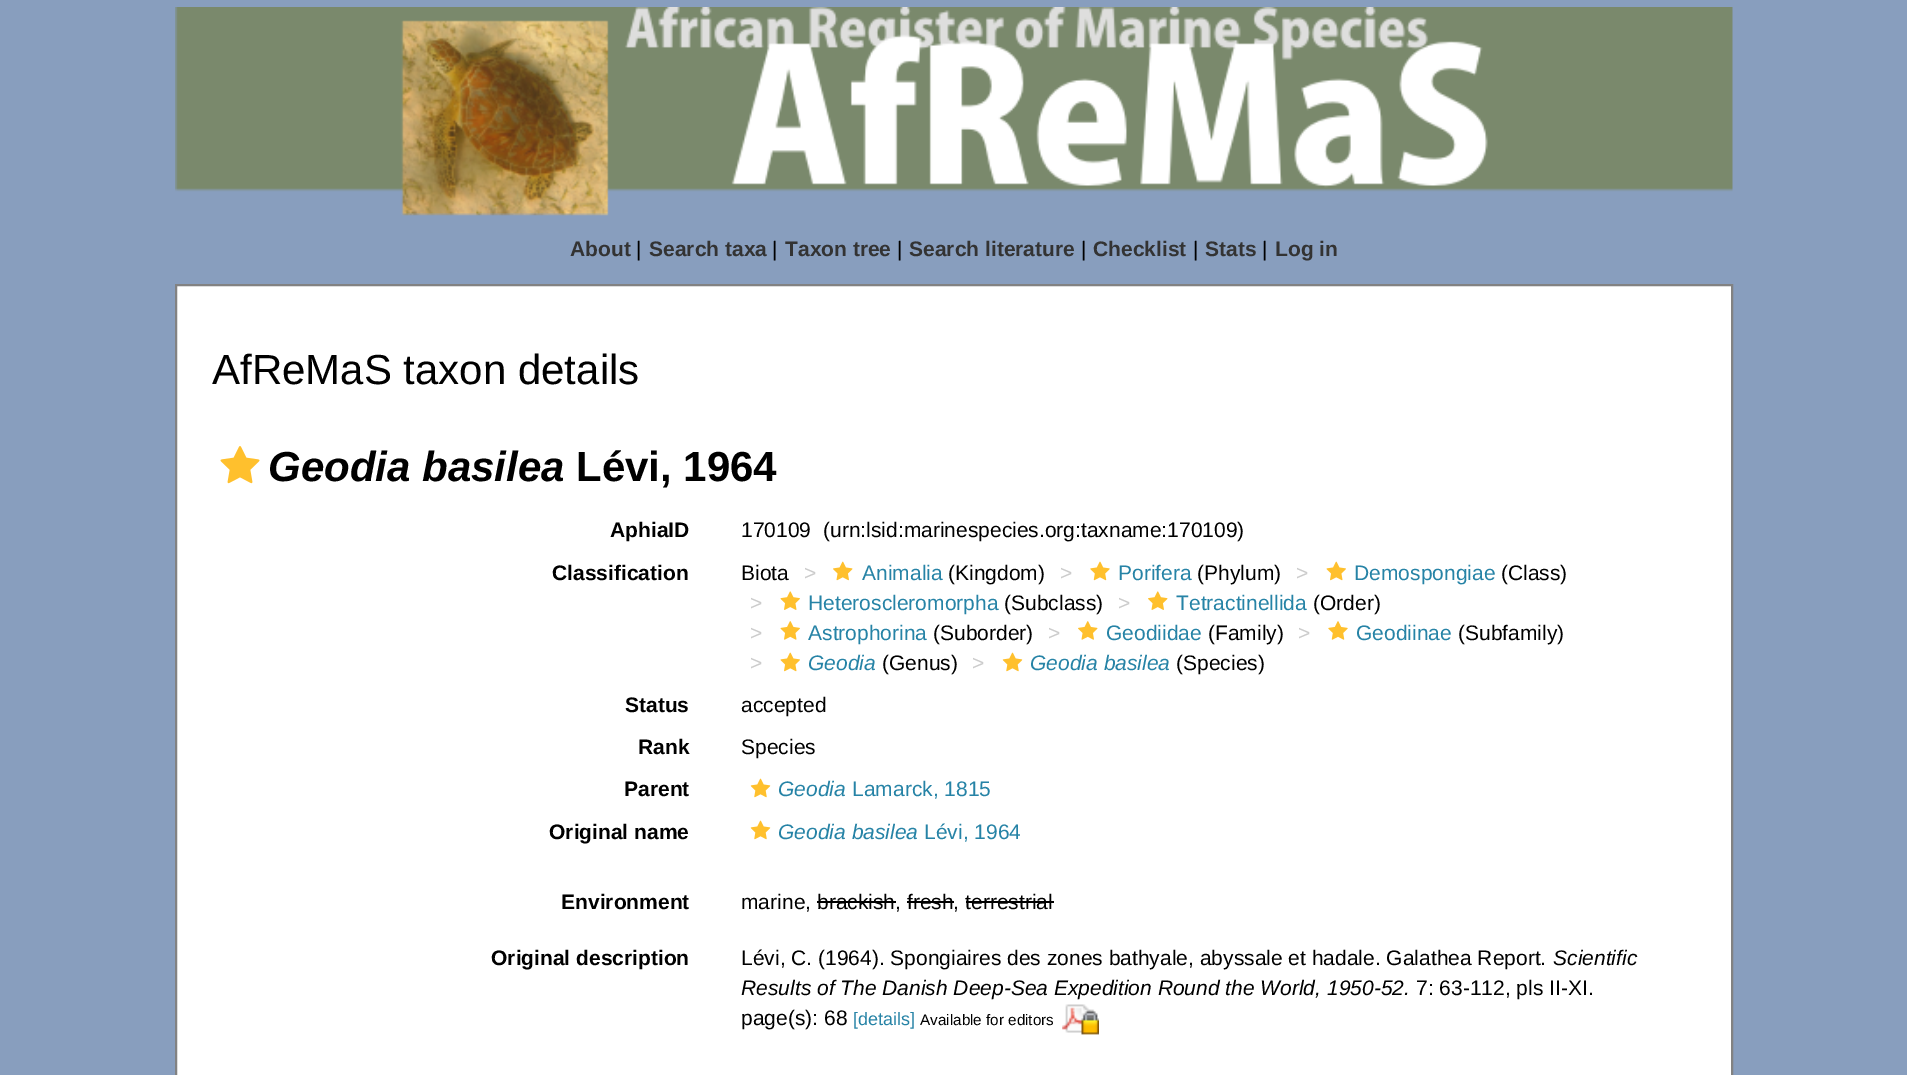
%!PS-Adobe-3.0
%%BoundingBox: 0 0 1907 1075
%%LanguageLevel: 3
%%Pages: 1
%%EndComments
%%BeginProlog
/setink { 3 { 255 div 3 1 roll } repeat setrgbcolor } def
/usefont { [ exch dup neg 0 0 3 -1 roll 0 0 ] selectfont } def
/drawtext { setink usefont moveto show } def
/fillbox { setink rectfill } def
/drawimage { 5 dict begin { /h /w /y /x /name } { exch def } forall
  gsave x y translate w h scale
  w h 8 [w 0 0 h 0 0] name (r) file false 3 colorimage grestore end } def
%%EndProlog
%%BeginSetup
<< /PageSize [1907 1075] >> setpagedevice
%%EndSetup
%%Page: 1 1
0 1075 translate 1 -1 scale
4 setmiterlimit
0 0 1907 1075 136 158 190 fillbox
(assets/img1.rgb) 175 7 1558 209 drawimage
(About) 570 256 /LiberationSans-Bold 21 51 51 51 drawtext
(|) 636 256 /LiberationSans-Regular 21 0 0 0 drawtext
(Search taxa) 649 256 /LiberationSans-Bold 21 51 51 51 drawtext
(|) 772 256 /LiberationSans-Regular 21 0 0 0 drawtext
(Taxon tree) 785 256 /LiberationSans-Bold 21 51 51 51 drawtext
(|) 897 256 /LiberationSans-Regular 21 0 0 0 drawtext
(Search literature) 909 256 /LiberationSans-Bold 21 51 51 51 drawtext
(|) 1081 256 /LiberationSans-Regular 21 0 0 0 drawtext
(Checklist) 1093 256 /LiberationSans-Bold 21 51 51 51 drawtext
(|) 1193 256 /LiberationSans-Regular 21 0 0 0 drawtext
(Stats) 1205 256 /LiberationSans-Bold 21 51 51 51 drawtext
(|) 1262 256 /LiberationSans-Regular 21 0 0 0 drawtext
(Log in) 1275 256 /LiberationSans-Bold 21 51 51 51 drawtext
255 255 255 setink
176 285 moveto 1732 285 lineto 1732 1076 lineto 176 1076 lineto closepath gsave fill grestore
130 130 130 setink
2 setlinewidth
stroke
(AfReMaS taxon details) 212 384 /LiberationSans-Regular 42 0 0 0 drawtext
(assets/img2.rgb) 220 446 40 38 drawimage
(Geodia basilea) 268 481 /LiberationSans-BoldItalic 42 0 0 0 drawtext
(Lévi, 1964) 576 481 /LiberationSans-Bold 42 0 0 0 drawtext
(AphiaID) 610 537 /LiberationSans-Bold 21 0 0 0 drawtext
(170109) 741 537 /LiberationSans-Regular 21 0 0 0 drawtext
(\(urn:lsid:marinespecies.org:taxname:170109\)) 823 537 /LiberationSans-Regular 21 0 0 0 drawtext
(Classification) 552 580 /LiberationSans-Bold 21 0 0 0 drawtext
(Biota) 741 580 /LiberationSans-Regular 21 0 0 0 drawtext
(>) 804 580 /LiberationSans-Regular 21 204 204 204 drawtext
(assets/img3.rgb) 833 561 20 20 drawimage
(Animalia) 862 580 /LiberationSans-Regular 21 38 131 166 drawtext
(\(Kingdom\)) 948 580 /LiberationSans-Regular 21 0 0 0 drawtext
(>) 1060 580 /LiberationSans-Regular 21 204 204 204 drawtext
(assets/img4.rgb) 1090 561 20 20 drawimage
(Porifera) 1118 580 /LiberationSans-Regular 21 38 131 166 drawtext
(\(Phylum\)) 1197 580 /LiberationSans-Regular 21 0 0 0 drawtext
(>) 1296 580 /LiberationSans-Regular 21 204 204 204 drawtext
(assets/img5.rgb) 1326 561 20 20 drawimage
(Demospongiae) 1354 580 /LiberationSans-Regular 21 38 131 166 drawtext
(\(Class\)) 1501 580 /LiberationSans-Regular 21 0 0 0 drawtext
(>) 750 610 /LiberationSans-Regular 21 204 204 204 drawtext
(assets/img6.rgb) 780 591 20 19 drawimage
(Heteroscleromorpha) 808 610 /LiberationSans-Regular 21 38 131 166 drawtext
(\(Subclass\)) 1004 610 /LiberationSans-Regular 21 0 0 0 drawtext
(>) 1118 610 /LiberationSans-Regular 21 204 204 204 drawtext
(assets/img7.rgb) 1148 591 20 19 drawimage
(Tetractinellida) 1176 610 /LiberationSans-Regular 21 38 131 166 drawtext
(\(Order\)) 1313 610 /LiberationSans-Regular 21 0 0 0 drawtext
(>) 750 640 /LiberationSans-Regular 21 204 204 204 drawtext
(assets/img8.rgb) 780 621 20 19 drawimage
(Astrophorina) 808 640 /LiberationSans-Regular 21 38 131 166 drawtext
(\(Suborder\)) 933 640 /LiberationSans-Regular 21 0 0 0 drawtext
(>) 1048 640 /LiberationSans-Regular 21 204 204 204 drawtext
(assets/img9.rgb) 1078 621 20 19 drawimage
(Geodiidae) 1106 640 /LiberationSans-Regular 21 38 131 166 drawtext
(\(Family\)) 1208 640 /LiberationSans-Regular 21 0 0 0 drawtext
(>) 1298 640 /LiberationSans-Regular 21 204 204 204 drawtext
(assets/img10.rgb) 1328 621 20 19 drawimage
(Geodiinae) 1356 640 /LiberationSans-Regular 21 38 131 166 drawtext
(\(Subfamily\)) 1458 640 /LiberationSans-Regular 21 0 0 0 drawtext
(>) 750 670 /LiberationSans-Regular 21 204 204 204 drawtext
(assets/img5.rgb) 780 652 20 20 drawimage
(Geodia) 808 670 /LiberationSans-Italic 21 38 131 166 drawtext
(\(Genus\)) 882 670 /LiberationSans-Regular 21 0 0 0 drawtext
(>) 972 670 /LiberationSans-Regular 21 204 204 204 drawtext
(assets/img11.rgb) 1002 652 21 20 drawimage
(Geodia basilea) 1030 670 /LiberationSans-Italic 21 38 131 166 drawtext
(\(Species\)) 1176 670 /LiberationSans-Regular 21 0 0 0 drawtext
(Status) 625 712 /LiberationSans-Bold 21 0 0 0 drawtext
(accepted) 741 712 /LiberationSans-Regular 21 0 0 0 drawtext
(Rank) 638 754 /LiberationSans-Bold 21 0 0 0 drawtext
(Species) 741 754 /LiberationSans-Regular 21 0 0 0 drawtext
(Parent) 624 796 /LiberationSans-Bold 21 0 0 0 drawtext
(assets/img11.rgb) 750 778 21 20 drawimage
(Geodia) 778 796 /LiberationSans-Italic 21 38 131 166 drawtext
(Lamarck, 1815) 852 796 /LiberationSans-Regular 21 38 131 166 drawtext
(Original name) 549 839 /LiberationSans-Bold 21 0 0 0 drawtext
(assets/img11.rgb) 750 820 21 20 drawimage
(Geodia basilea) 778 839 /LiberationSans-Italic 21 38 131 166 drawtext
(Lévi, 1964) 924 839 /LiberationSans-Regular 21 38 131 166 drawtext
(Environment) 561 909 /LiberationSans-Bold 21 0 0 0 drawtext
(marine, brackish, fresh, terrestrial) 741 909 /LiberationSans-Regular 21 0 0 0 drawtext
817 901 79 2 0 0 0 fillbox
907 901 47 2 0 0 0 fillbox
966 901 88 2 0 0 0 fillbox
(Original description) 491 965 /LiberationSans-Bold 21 0 0 0 drawtext
(Lévi, C. \(1964\). Spongiaires des zones bathyale, abyssale et hadale. Galathea Report.) 741 965 /LiberationSans-Regular 21 0 0 0 drawtext
(Scientific) 1553 965 /LiberationSans-Italic 21 0 0 0 drawtext
(Results of The Danish Deep-Sea Expedition Round the World, 1950-52.) 741 995 /LiberationSans-Italic 21 0 0 0 drawtext
(7: 63-112, pls II-XI.) 1416 995 /LiberationSans-Regular 21 0 0 0 drawtext
(page\(s\): 68) 741 1025 /LiberationSans-Regular 21 0 0 0 drawtext
([details]) 853 1025 /LiberationSans-Regular 18 38 131 166 drawtext
(Available for editors) 920 1025 /LiberationSans-Regular 15.25 0 0 0 drawtext
(assets/img12.rgb) 1062 1004 37 31 drawimage
showpage
%%EOF
